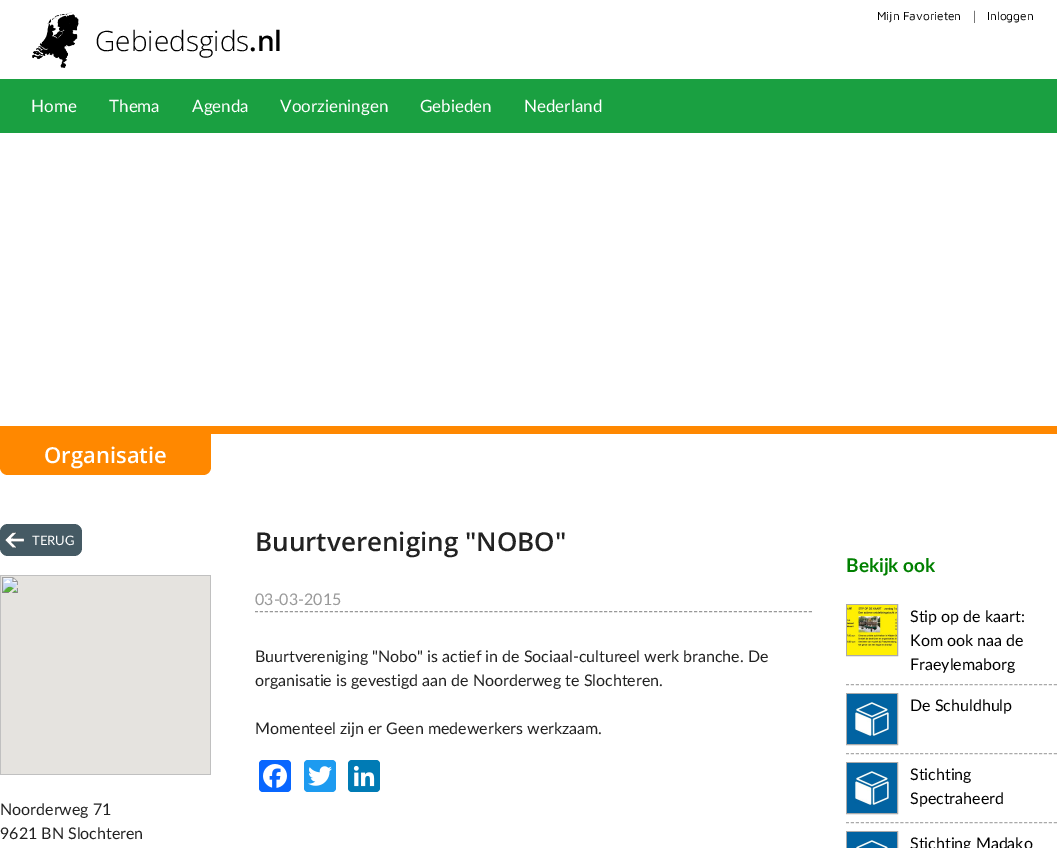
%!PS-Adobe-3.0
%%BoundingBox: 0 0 1057 848
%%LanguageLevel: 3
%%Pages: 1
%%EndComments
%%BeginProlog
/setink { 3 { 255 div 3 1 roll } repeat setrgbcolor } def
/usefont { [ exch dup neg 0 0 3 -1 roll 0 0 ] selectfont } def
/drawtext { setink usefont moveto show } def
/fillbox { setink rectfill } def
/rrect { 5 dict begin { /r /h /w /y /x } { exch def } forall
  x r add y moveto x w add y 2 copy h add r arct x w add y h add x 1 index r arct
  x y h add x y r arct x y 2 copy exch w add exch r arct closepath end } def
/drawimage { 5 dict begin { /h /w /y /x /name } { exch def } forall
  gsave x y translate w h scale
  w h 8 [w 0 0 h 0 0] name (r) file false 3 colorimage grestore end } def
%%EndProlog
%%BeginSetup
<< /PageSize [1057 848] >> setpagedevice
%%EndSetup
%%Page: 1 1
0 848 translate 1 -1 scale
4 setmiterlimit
0 0 1057 848 255 255 255 fillbox
(Mijn Favorieten) 877 20 /MavenPro-Regular 12 0 0 0 drawtext
(|) 971 20 /OpenSans-Light 12 0 0 0 drawtext
(Inloggen) 987 20 /MavenPro-Regular 12 0 0 0 drawtext
(assets/img1.rgb) 32 12 47 56 drawimage
(Gebiedsgids) 95 51 /OpenSans-Light 28 0 0 0 drawtext
(.nl) 249 51 /OpenSans-SemiBold 28 0 0 0 drawtext
0 79 1057 54 26 160 65 fillbox
(Home) 31 112 /Lato-Regular 17 255 255 255 drawtext
(Thema) 109 112 /Lato-Regular 17 255 255 255 drawtext
(Agenda) 192 112 /Lato-Regular 17 255 255 255 drawtext
(Voorzieningen) 280 112 /Lato-Regular 17 255 255 255 drawtext
(Gebieden) 420 112 /Lato-Regular 17 255 255 255 drawtext
(Nederland) 524 112 /Lato-Regular 17 255 255 255 drawtext
69 90 100 setink
0 524 82 32 8 rrect fill
(assets/img2.rgb) 5 532 19 16 drawimage
(TERUG) 32 545 /Lato-Regular 13 255 255 255 drawtext
(assets/img3.rgb) 0 575 211 200 drawimage
(Noorderweg 71) 0 815 /Lato-Regular 16 34 34 34 drawtext
(9621 BN Slochteren) 0 839 /Lato-Regular 16 34 34 34 drawtext
(Buurtvereniging "NOBO") 255 551 /OpenSans-SemiBold 26 34 34 34 drawtext
153 153 153 setink
[3 1.99] 0 setdash
255 611.5 moveto 812 611.5 lineto stroke
(03-03-2015) 255 605 /Lato-Regular 16 153 153 153 drawtext
(Buurtvereniging "Nobo" is actief in de Sociaal-cultureel werk branche. De) 255 662 /Lato-Regular 16 34 34 34 drawtext
(organisatie is gevestigd aan de Noorderweg te Slochteren.) 255 686 /Lato-Regular 16 34 34 34 drawtext
(Momenteel zijn er Geen medewerkers werkzaam.) 255 734 /Lato-Regular 16 34 34 34 drawtext
8 102 255 setink
259 760 32 32 4 rrect fill
(assets/img4.rgb) 263 764 24 24 drawimage
29 155 240 setink
304 760 32 32 4 rrect fill
(assets/img5.rgb) 308 766 24 20 drawimage
0 123 181 setink
348 760 32 32 4 rrect fill
(assets/img6.rgb) 353 765 22 22 drawimage
(Bekijk ook) 846 572 /Lato-Bold 19 0 128 0 drawtext
170 170 170 setink
[3 1.95] 0 setdash
846 684.5 moveto 1057 684.5 lineto stroke
[] 0 setdash
846.5 604.5 51 51 rectstroke
(assets/img7.rgb) 847 605 50 50 drawimage
(Stip op de kaart:) 910 622 /Lato-Regular 16 0 0 0 drawtext
(Kom ook naa de) 910 646 /Lato-Regular 16 0 0 0 drawtext
(Fraeylemaborg) 910 670 /Lato-Regular 16 0 0 0 drawtext
170 170 170 setink
[3 1.95] 0 setdash
846 753.5 moveto 1057 753.5 lineto stroke
[] 0 setdash
846.5 693.5 51 51 rectstroke
(assets/img8.rgb) 847 694 50 50 drawimage
(De Schuldhulp) 910 711 /Lato-Regular 16 0 0 0 drawtext
170 170 170 setink
[3 1.95] 0 setdash
846 822.5 moveto 1057 822.5 lineto stroke
[] 0 setdash
846.5 762.5 51 51 rectstroke
(assets/img8.rgb) 847 763 50 50 drawimage
(Stichting) 910 780 /Lato-Regular 16 0 0 0 drawtext
(Spectraheerd) 910 804 /Lato-Regular 16 0 0 0 drawtext
170 170 170 setink
846.5 831.5 51 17 rectstroke
(assets/img9.rgb) 847 832 50 16 drawimage
(Stichting Madako) 910 849 /Lato-Regular 16 0 0 0 drawtext
255 136 0 setink
0 434 moveto 211 434 lineto 211 467 lineto 211 471.5 207.5 475 203 475 curveto 8 475 lineto 3.5 475 0 471.5 0 467 curveto closepath fill
(Organisatie) 44 463 /OpenSans-SemiBold 22 255 255 255 drawtext
0 426 1057 8 255 136 0 fillbox
showpage
%%EOF
